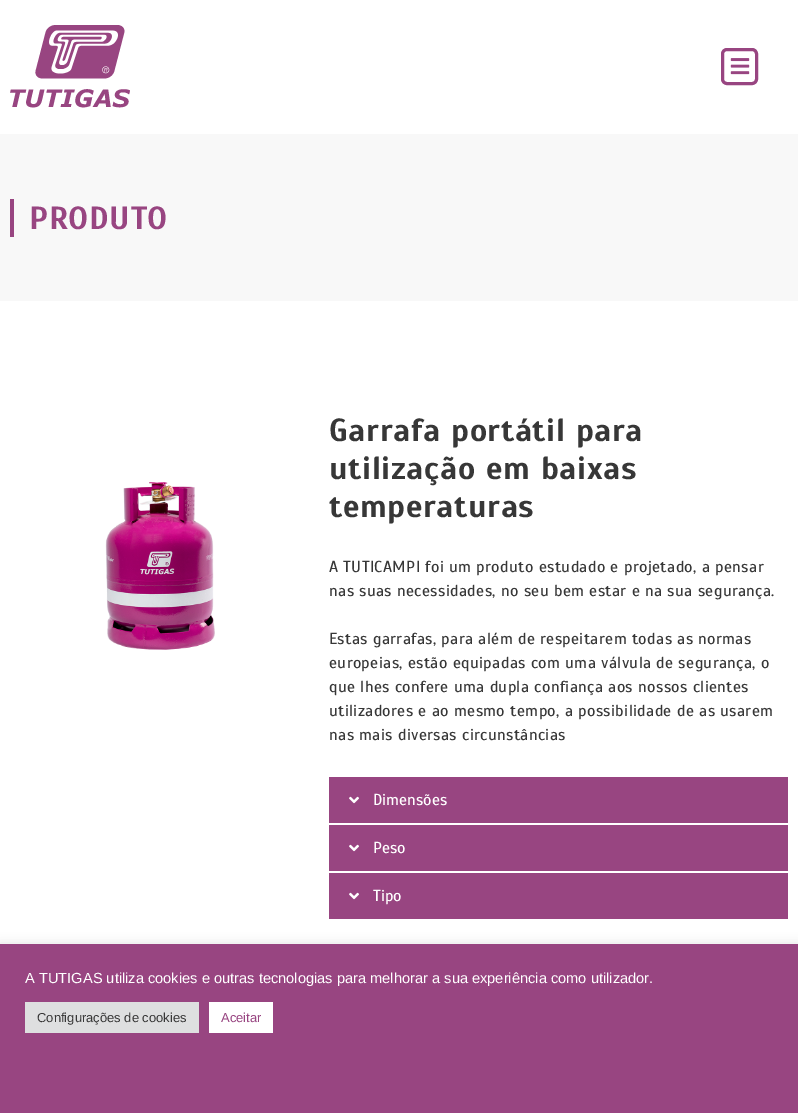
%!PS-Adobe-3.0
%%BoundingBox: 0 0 798 1113
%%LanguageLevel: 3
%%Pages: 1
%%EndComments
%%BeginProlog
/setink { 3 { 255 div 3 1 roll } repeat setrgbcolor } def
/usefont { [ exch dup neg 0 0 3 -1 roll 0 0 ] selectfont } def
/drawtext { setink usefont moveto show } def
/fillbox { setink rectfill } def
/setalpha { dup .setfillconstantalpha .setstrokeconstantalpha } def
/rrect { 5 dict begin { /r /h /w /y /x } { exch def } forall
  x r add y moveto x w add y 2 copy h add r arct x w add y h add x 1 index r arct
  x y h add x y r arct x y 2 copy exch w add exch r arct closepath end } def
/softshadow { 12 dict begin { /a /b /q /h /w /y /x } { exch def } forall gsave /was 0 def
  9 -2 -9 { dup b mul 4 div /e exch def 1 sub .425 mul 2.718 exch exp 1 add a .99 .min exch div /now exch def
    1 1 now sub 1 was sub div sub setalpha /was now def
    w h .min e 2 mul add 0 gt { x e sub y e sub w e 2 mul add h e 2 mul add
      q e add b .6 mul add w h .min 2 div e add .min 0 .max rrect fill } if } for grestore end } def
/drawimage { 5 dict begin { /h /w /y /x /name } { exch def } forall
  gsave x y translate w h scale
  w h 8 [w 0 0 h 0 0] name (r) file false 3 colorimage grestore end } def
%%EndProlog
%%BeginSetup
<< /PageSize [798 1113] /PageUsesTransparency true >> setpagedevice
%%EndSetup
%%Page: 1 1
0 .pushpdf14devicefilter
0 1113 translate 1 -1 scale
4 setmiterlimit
0 0 798 1113 255 255 255 fillbox
(assets/img1.rgb) 10 25 120 83 drawimage
152 69 129 setink
3 setlinewidth
722.5 49.5 34 34 4.5 rrect stroke
(assets/img2.rgb) 730 58 20 17 drawimage
0 134 798 167 248 248 248 fillbox
10 199 4 38 152 69 129 fillbox
/Scada-Bold 32 usefont
29 229 moveto 0.6 0 (PRODUTO) ashow
(assets/img3.rgb) 105 482 110 168 drawimage
55 55 55 setink
329 441 moveto 0.6 0 (Garrafa portátil para) ashow
329 479 moveto 0.6 0 (utilização em baixas) ashow
329 517 moveto 0.6 0 (temperaturas) ashow
/Scada-Regular 16 usefont
329 572 moveto 0.32 0 (A TUTICAMPI foi um produto estudado e projetado, a pensar) ashow
329 596 moveto 0.32 0 (nas suas necessidades, no seu bem estar e na sua segurança.) ashow
329 644 moveto 0.32 0 (Estas garrafas, para além de respeitarem todas as normas) ashow
329 668 moveto 0.32 0 (europeias, estão equipadas com uma válvula de segurança, o) ashow
329 692 moveto 0.32 0 (que lhes confere uma dupla confiança aos nossos clientes) ashow
329 716 moveto 0.32 0 (utilizadores e ao mesmo tempo, a possibilidade de as usarem) ashow
329 740 moveto 0.32 0 (nas mais diversas circunstâncias) ashow
329 777 459 46 152 69 129 fillbox
(assets/img4.rgb) 349 796 10 8 drawimage
(Dimensões) 373 805 /Scada-Regular 16 255 255 255 drawtext
329 825 459 46 152 69 129 fillbox
(assets/img4.rgb) 349 844 10 8 drawimage
(Peso) 373 853 /Scada-Regular 16 255 255 255 drawtext
329 873 459 46 152 69 129 fillbox
(assets/img4.rgb) 349 892 10 8 drawimage
(Tipo) 373 901 /Scada-Regular 16 255 255 255 drawtext
172 171 171 setink
0 943 798 169 0 5 0.3 softshadow
0 944 798 169 152 69 129 fillbox
(A TUTIGAS utiliza cookies e outras tecnologias para melhorar a sua experiência como utilizador.) 25 983 /LiberationSans-Regular 14.65 255 255 255 drawtext
25 1002 174 31 222 223 224 fillbox
(Configurações de cookies) 37 1022 /LiberationSans-Regular 13 55 55 55 drawtext
209 1002 64 31 255 255 255 fillbox
(Aceitar) 221 1022 /LiberationSans-Regular 13 152 69 129 drawtext
.poppdf14devicefilter showpage
%%EOF
